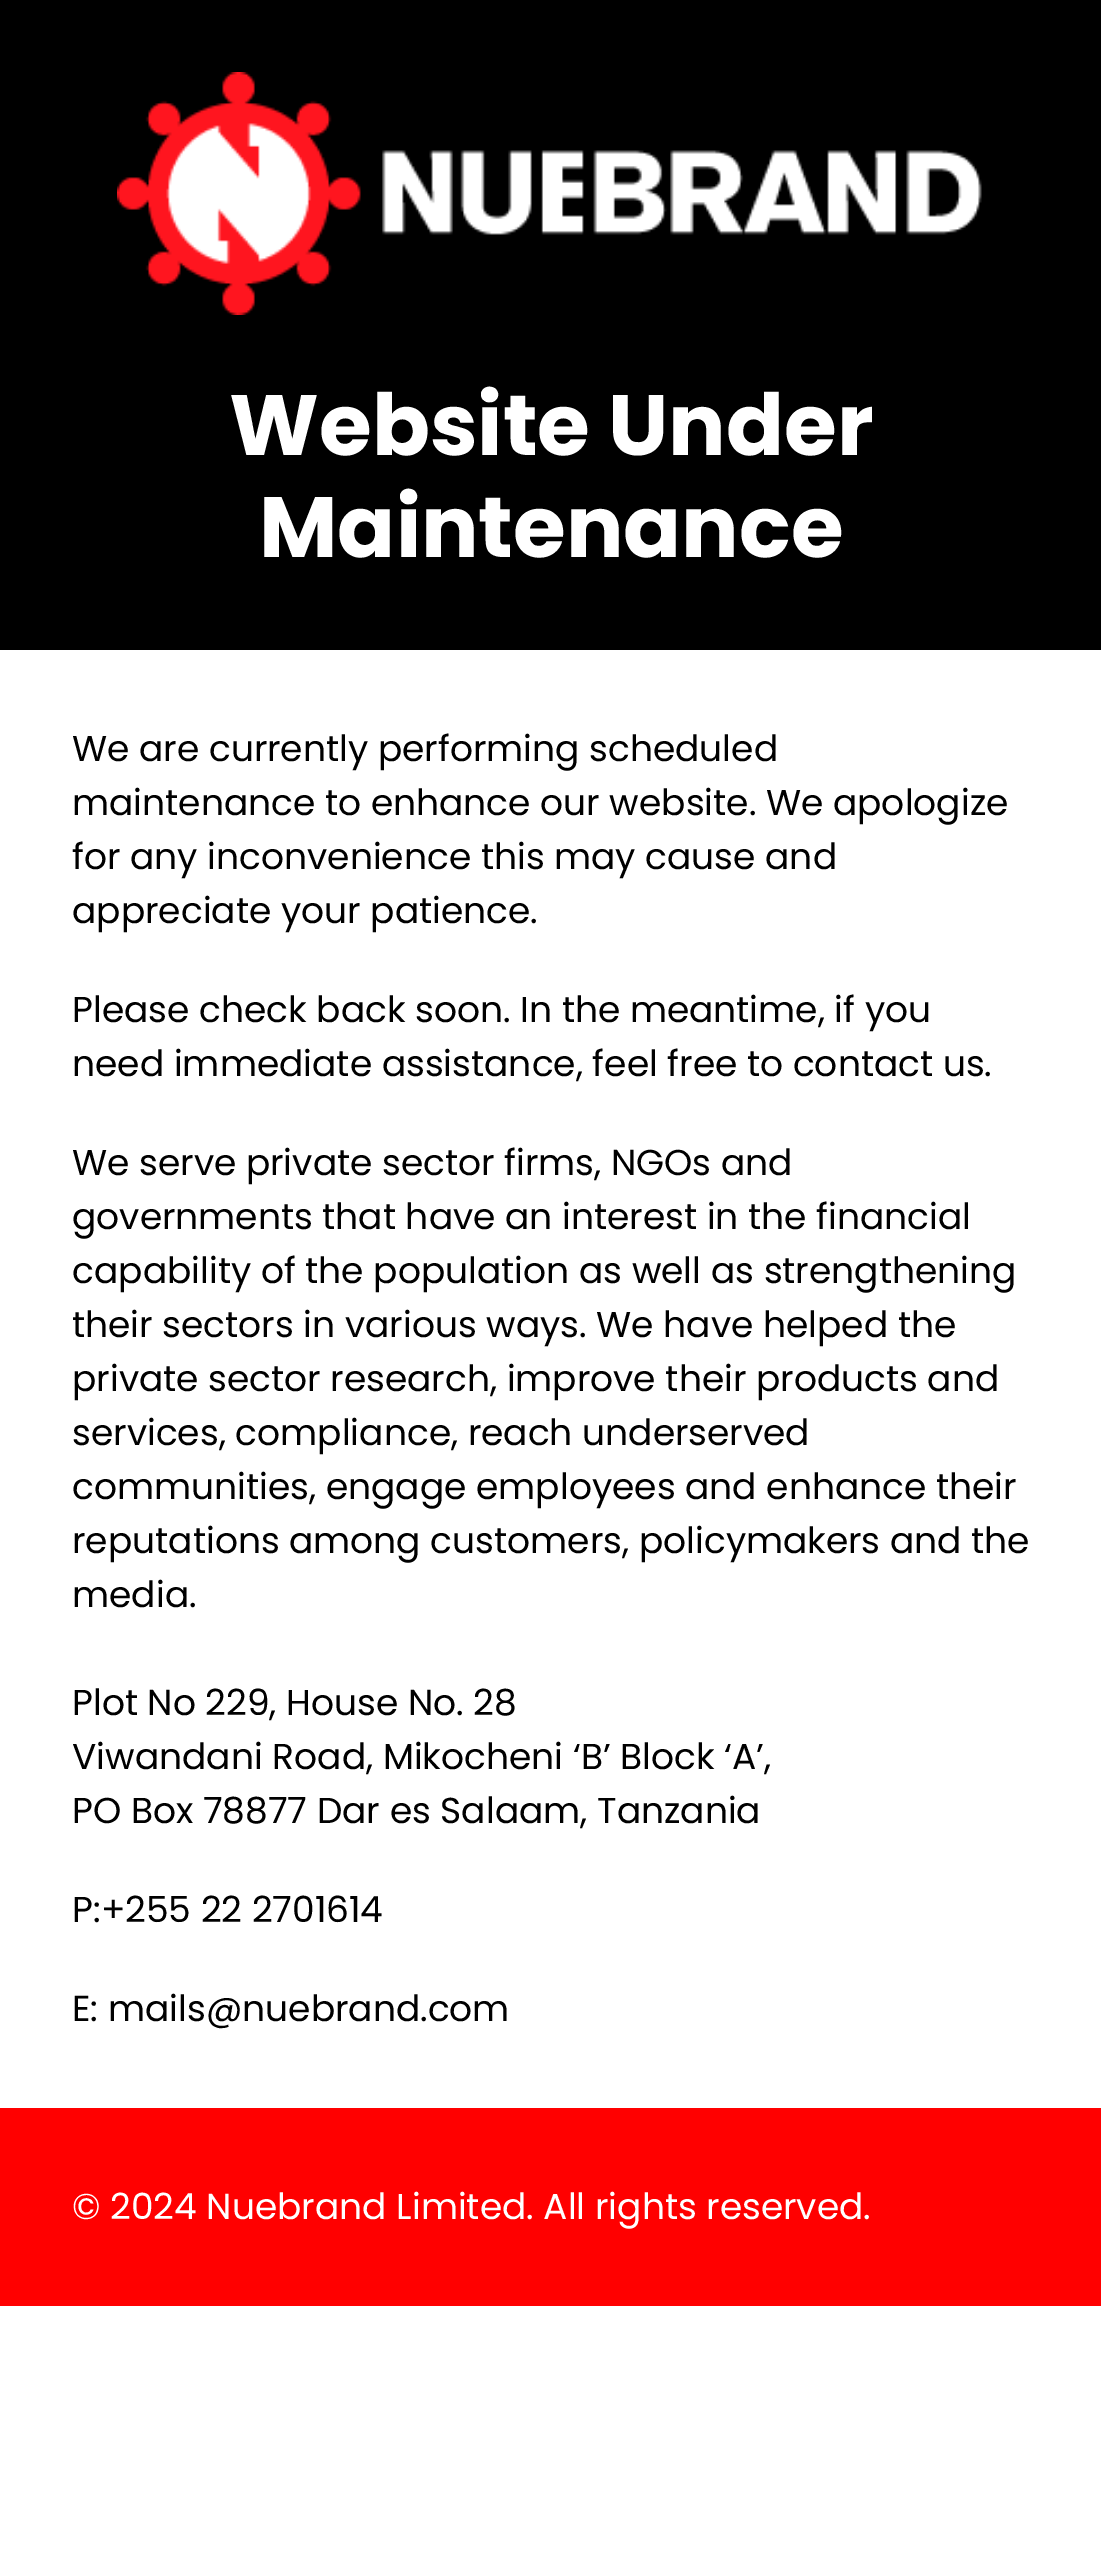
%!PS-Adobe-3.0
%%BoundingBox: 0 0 1101 2555
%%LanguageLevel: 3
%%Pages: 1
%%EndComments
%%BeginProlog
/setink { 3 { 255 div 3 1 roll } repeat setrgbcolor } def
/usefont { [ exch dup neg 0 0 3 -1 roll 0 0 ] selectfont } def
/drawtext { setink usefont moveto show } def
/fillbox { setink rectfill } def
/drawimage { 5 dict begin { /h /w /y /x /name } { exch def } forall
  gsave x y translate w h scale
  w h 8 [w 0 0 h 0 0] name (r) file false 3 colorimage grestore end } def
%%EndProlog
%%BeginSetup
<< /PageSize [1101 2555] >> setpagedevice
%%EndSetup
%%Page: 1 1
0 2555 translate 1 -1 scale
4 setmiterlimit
0 0 1101 2555 255 255 255 fillbox
0 0 1101 650 0 0 0 fillbox
(assets/img1.rgb) 117 72 865 243 drawimage
(Website Under) 229 455 /Poppins-Bold 85.5 255 255 255 drawtext
(Maintenance) 259 557 /Poppins-Bold 85.5 255 255 255 drawtext
(We are currently performing scheduled) 72 761 /Poppins-Regular 36 0 0 0 drawtext
(maintenance to enhance our website. We apologize) 72 815 /Poppins-Regular 36 0 0 0 drawtext
(for any inconvenience this may cause and) 72 869 /Poppins-Regular 36 0 0 0 drawtext
(appreciate your patience.) 72 923 /Poppins-Regular 36 0 0 0 drawtext
(Please check back soon. In the meantime, if you) 72 1022 /Poppins-Regular 36 0 0 0 drawtext
(need immediate assistance, feel free to contact us.) 72 1076 /Poppins-Regular 36 0 0 0 drawtext
(We serve private sector firms, NGOs and) 72 1175 /Poppins-Regular 36 0 0 0 drawtext
(governments that have an interest in the financial) 72 1229 /Poppins-Regular 36 0 0 0 drawtext
(capability of the population as well as strengthening) 72 1283 /Poppins-Regular 36 0 0 0 drawtext
(their sectors in various ways. We have helped the) 72 1337 /Poppins-Regular 36 0 0 0 drawtext
(private sector research, improve their products and) 72 1391 /Poppins-Regular 36 0 0 0 drawtext
(services, compliance, reach underserved) 72 1445 /Poppins-Regular 36 0 0 0 drawtext
(communities, engage employees and enhance their) 72 1499 /Poppins-Regular 36 0 0 0 drawtext
(reputations among customers, policymakers and the) 72 1553 /Poppins-Regular 36 0 0 0 drawtext
(media.) 72 1607 /Poppins-Regular 36 0 0 0 drawtext
(Plot No 229, House No. 28) 72 1715 /Poppins-Regular 36 0 0 0 drawtext
(Viwandani Road, Mikocheni ‘B’ Block ‘A’,) 72 1769 /Poppins-Regular 36 0 0 0 drawtext
(PO Box 78877 Dar es Salaam, Tanzania) 72 1823 /Poppins-Regular 36 0 0 0 drawtext
(P:+255 22 2701614) 72 1922 /Poppins-Regular 36 0 0 0 drawtext
(E: mails@nuebrand.com) 72 2021 /Poppins-Regular 36 0 0 0 drawtext
0 2108 1101 198 255 0 0 fillbox
(© 2024 Nuebrand Limited. All rights reserved.) 72 2219 /Poppins-Regular 36 255 255 255 drawtext
showpage
%%EOF
